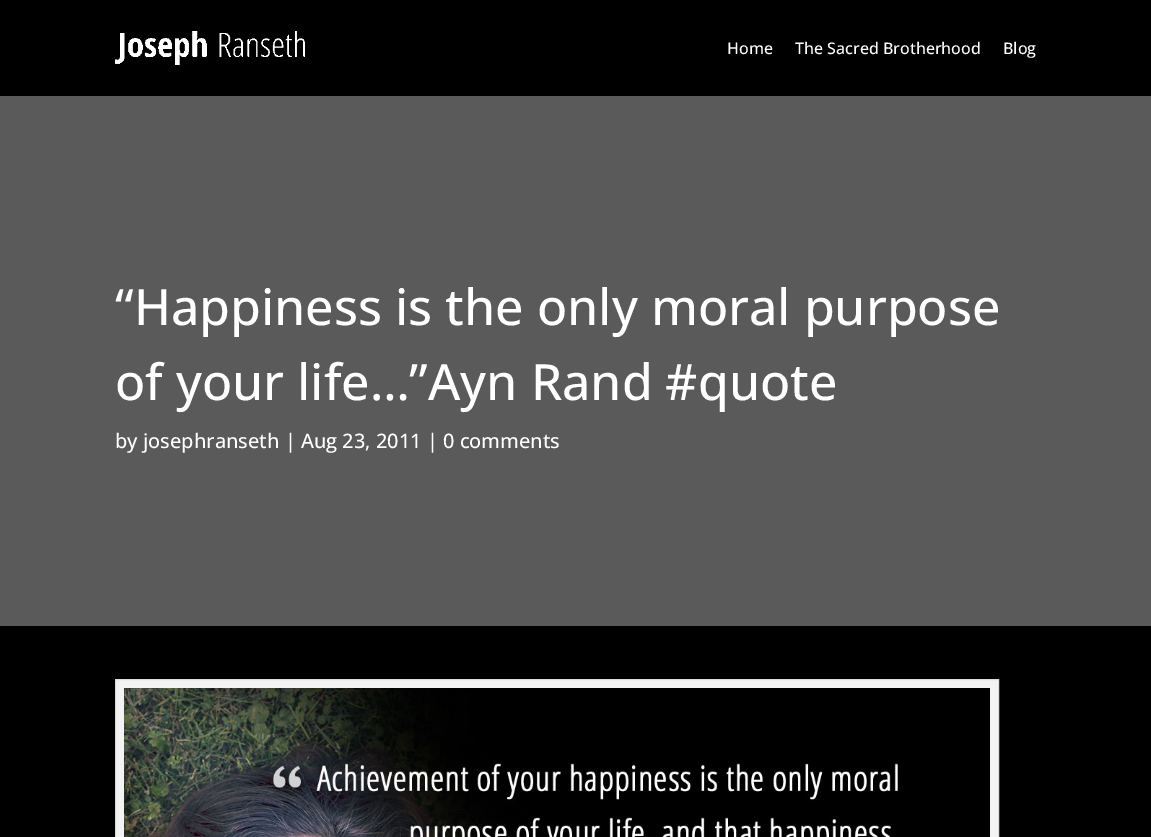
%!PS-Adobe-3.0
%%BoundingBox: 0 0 1151 837
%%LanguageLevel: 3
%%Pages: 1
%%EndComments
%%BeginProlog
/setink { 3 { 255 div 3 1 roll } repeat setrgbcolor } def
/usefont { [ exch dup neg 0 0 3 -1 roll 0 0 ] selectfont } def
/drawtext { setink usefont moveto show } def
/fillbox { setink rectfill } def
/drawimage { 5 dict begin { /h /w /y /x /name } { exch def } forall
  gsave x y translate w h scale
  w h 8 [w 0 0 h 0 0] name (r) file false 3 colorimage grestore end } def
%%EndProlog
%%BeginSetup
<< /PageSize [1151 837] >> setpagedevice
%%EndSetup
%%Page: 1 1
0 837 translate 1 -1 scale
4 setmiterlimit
0 0 1151 837 90 90 90 fillbox
0 0 1151 96 0 0 0 fillbox
(assets/img1.rgb) 115 31 190 34 drawimage
(Home) 727 54 /OpenSans-Medium 16 255 255 255 drawtext
(The Sacred Brotherhood) 795 54 /OpenSans-Medium 16 255 255 255 drawtext
(Blog) 1003 54 /OpenSans-Medium 16 255 255 255 drawtext
(“Happiness is the only moral purpose) 115 325 /OpenSans-Medium 50 255 255 255 drawtext
(of your life…”Ayn Rand #quote) 115 400 /OpenSans-Medium 50 255 255 255 drawtext
(by josephranseth | Aug 23, 2011 | 0 comments) 115 448 /OpenSans-Medium 20 255 255 255 drawtext
0 626 1151 211 0 0 0 fillbox
243 243 243 setink
115.5 679.5 moveto 998.5 679.5 lineto 998.5 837.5 lineto 115.5 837.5 lineto closepath gsave fill grestore
221 221 221 setink
stroke
(assets/img2.rgb) 124 688 866 149 drawimage
showpage
%%EOF
